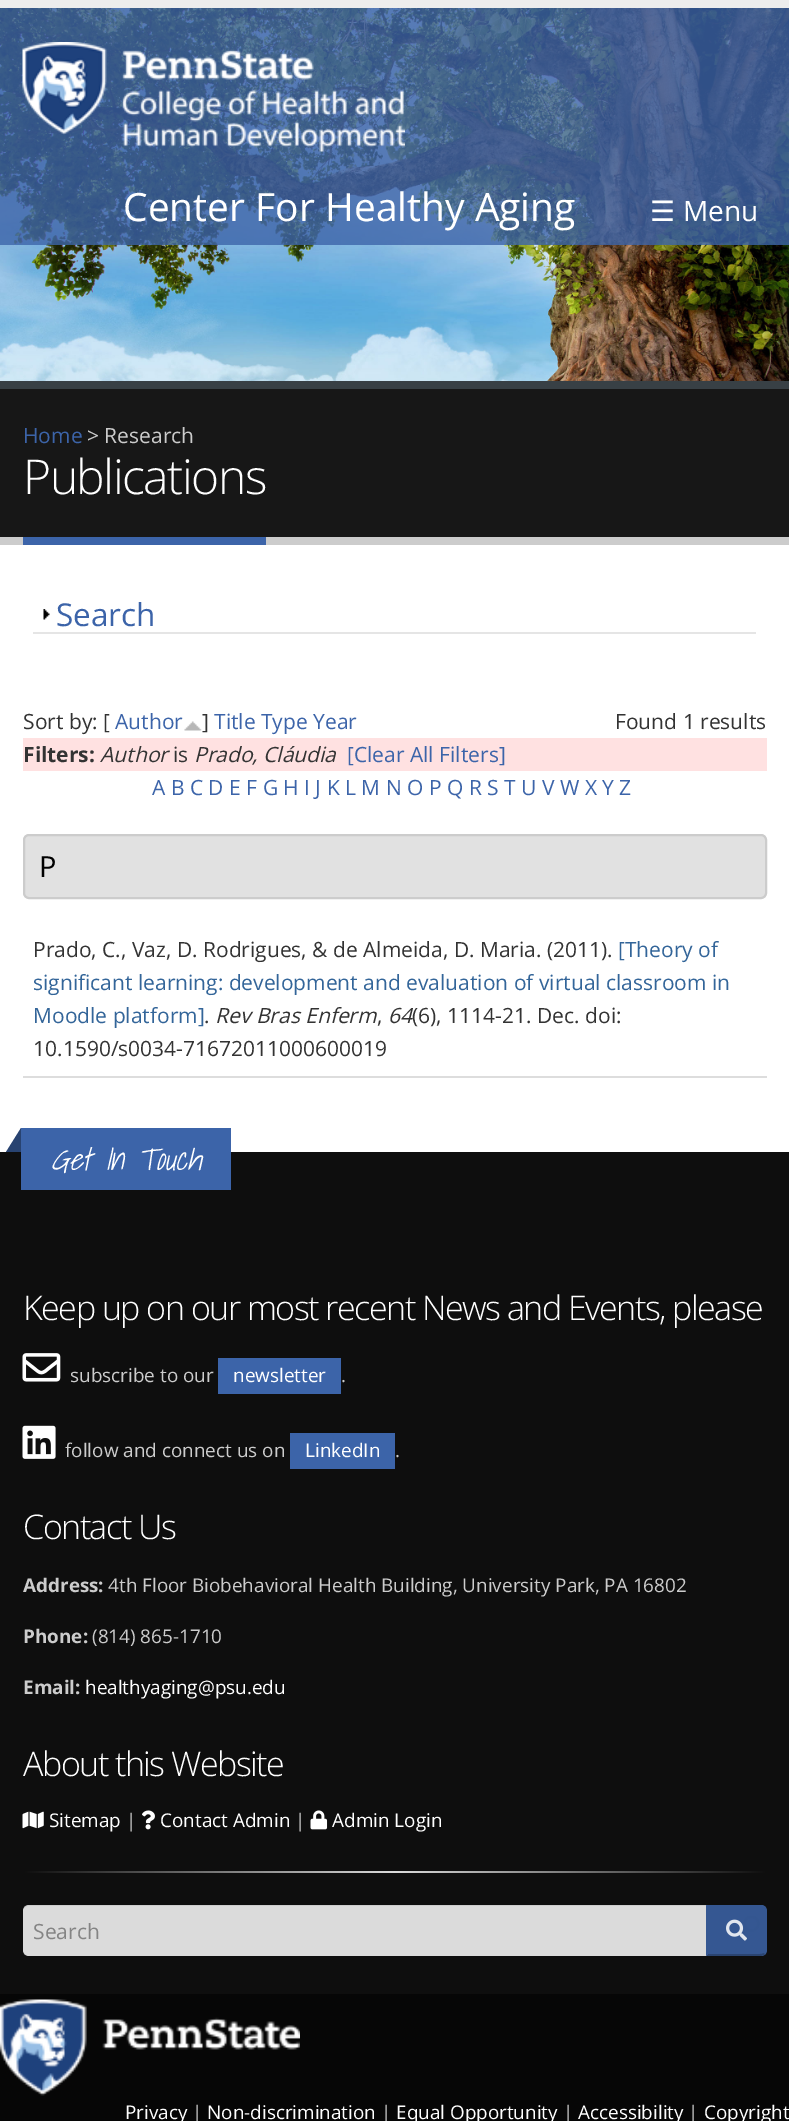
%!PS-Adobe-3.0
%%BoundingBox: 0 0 789 2121
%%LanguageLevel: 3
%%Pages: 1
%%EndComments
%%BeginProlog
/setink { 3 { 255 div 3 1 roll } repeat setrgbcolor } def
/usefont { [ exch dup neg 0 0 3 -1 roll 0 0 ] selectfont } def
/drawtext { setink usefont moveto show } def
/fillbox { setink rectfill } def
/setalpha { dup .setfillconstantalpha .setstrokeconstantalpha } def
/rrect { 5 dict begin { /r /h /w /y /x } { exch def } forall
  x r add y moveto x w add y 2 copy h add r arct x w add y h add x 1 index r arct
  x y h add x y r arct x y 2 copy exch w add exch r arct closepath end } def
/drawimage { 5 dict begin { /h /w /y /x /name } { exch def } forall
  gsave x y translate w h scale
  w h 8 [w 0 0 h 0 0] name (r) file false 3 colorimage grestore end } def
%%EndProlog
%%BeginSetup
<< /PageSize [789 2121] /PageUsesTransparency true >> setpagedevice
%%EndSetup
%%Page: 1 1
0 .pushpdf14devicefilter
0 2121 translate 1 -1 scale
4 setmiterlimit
0 0 789 2121 255 255 255 fillbox
(assets/img1.rgb) 0 8 789 373 drawimage
0.8 setalpha
0 8 789 237 60 100 169 fillbox
1 setalpha
0 0 789 8 237 237 237 fillbox
(assets/img2.rgb) 22 42 383 110 drawimage
(Center For Healthy Aging) 123 221 /OpenSans-Regular 39 255 255 255 drawtext
(☰) 650 221 /DejaVuSans-Regular 28 255 255 255 drawtext
(Menu) 683 221 /OpenSans-Regular 28 255 255 255 drawtext
0 389 789 148 23 23 23 fillbox
0 381 789 8 56 64 69 fillbox
0 537 789 8 204 204 204 fillbox
(Home) 23 443 /OpenSans-Regular 21 60 100 169 drawtext
(> Research) 87 443 /OpenSans-Regular 21 204 204 204 drawtext
23 537 243 8 60 100 169 fillbox
/OpenSans-Light 48 usefont
255 255 255 setink
23 494 moveto -1.5 0 (Publications) ashow
33 632 723 2 229 229 229 fillbox
(assets/img3.rgb) 43 609 7 11 drawimage
(Search) 56 626 /OpenSans-Regular 31.5 60 100 169 drawtext
(Sort by: [) 23 729 /OpenSans-Regular 21 51 51 51 drawtext
(Author) 115 729 /OpenSans-Regular 21 60 100 169 drawtext
(assets/img4.rgb) 184 721 18 10 drawimage
(]) 202 729 /OpenSans-Regular 21 51 51 51 drawtext
(Title Type Year) 214 729 /OpenSans-Regular 21 60 100 169 drawtext
(Found 1 results) 615 729 /OpenSans-Regular 21 51 51 51 drawtext
23 738 744 33 255 225 225 fillbox
(Filters:) 23 762 /OpenSans-Bold 21 51 51 51 drawtext
(Author) 100 762 /OpenSans-Italic 21 51 51 51 drawtext
(is) 173 762 /OpenSans-Regular 21 51 51 51 drawtext
(Prado, Cláudia) 194 762 /OpenSans-Italic 21 51 51 51 drawtext
([Clear All Filters]) 347 762 /OpenSans-Regular 21 60 100 169 drawtext
(A B C D E F G H I J K L M N O P Q R S T U V W X Y Z) 152 795 /OpenSans-Regular 21 60 100 169 drawtext
225 225 225 setink
24 835 742 63 5 rrect gsave fill grestore
204 204 204 setink
2 setlinewidth
stroke
(P) 39 877 /OpenSans-Regular 29 0 0 0 drawtext
23 1076 744 2 221 221 221 fillbox
(Prado, C., Vaz, D. Rodrigues, & de Almeida, D. Maria. \(2011\).) 33 957 /OpenSans-Regular 21 51 51 51 drawtext
([Theory of) 618 957 /OpenSans-Regular 21 51 101 153 drawtext
(significant learning: development and evaluation of virtual classroom in) 33 990 /OpenSans-Regular 21 51 101 153 drawtext
(Moodle platform]) 33 1023 /OpenSans-Regular 21 51 101 153 drawtext
(.) 204 1023 /OpenSans-Regular 21 51 51 51 drawtext
(Rev Bras Enferm) 215 1023 /OpenSans-Italic 21 51 51 51 drawtext
(,) 377 1023 /OpenSans-Regular 21 51 51 51 drawtext
(64) 388 1023 /OpenSans-Italic 21 51 51 51 drawtext
(\(6\), 1114-21. Dec. doi:) 412 1023 /OpenSans-Regular 21 51 51 51 drawtext
(10.1590/s0034-71672011000600019) 33 1056 /OpenSans-Regular 21 51 51 51 drawtext
0 1152 789 842 14 14 14 fillbox
21 1128 210 62 60 100 169 fillbox
40 67 113 setink
21 1128 moveto 21 1152 lineto 6 1152 lineto closepath fill
(Get In Touch) 51 1170 /ShadowsIntoLight-LightItalic 30.25 255 255 255 drawtext
/OpenSans-Light 34 usefont
23 1320 moveto -1.5 0 (Keep up on our most recent News and Events, please) ashow
(assets/img5.rgb) 22 1353 39 29 drawimage
(subscribe to our) 70 1382 /OpenSans-Regular 18.9 204 204 204 drawtext
218 1358 123 36 60 100 169 fillbox
(newsletter) 233 1382 /OpenSans-Regular 18.9 255 255 255 drawtext
(.) 341 1382 /OpenSans-Regular 18.9 204 204 204 drawtext
(assets/img6.rgb) 22 1425 34 34 drawimage
(follow and connect us on) 65 1457 /OpenSans-Regular 18.9 204 204 204 drawtext
290 1433 105 36 60 100 169 fillbox
(LinkedIn) 305 1457 /OpenSans-Regular 18.9 255 255 255 drawtext
(.) 395 1457 /OpenSans-Regular 18.9 204 204 204 drawtext
/OpenSans-Light 34 usefont
255 255 255 setink
23 1539 moveto -1.5 0 (Contact Us) ashow
(Address:) 23 1592 /OpenSans-Bold 18.9 204 204 204 drawtext
(4th Floor Biobehavioral Health Building, University Park, PA 16802) 108 1592 /OpenSans-Regular 18.9 204 204 204 drawtext
(Phone:) 23 1643 /OpenSans-Bold 18.9 204 204 204 drawtext
(\(814\) 865-1710) 92 1643 /OpenSans-Regular 18.9 204 204 204 drawtext
(Email:) 23 1694 /OpenSans-Bold 18.9 204 204 204 drawtext
(healthyaging@psu.edu) 85 1694 /OpenSans-Regular 18.9 255 255 255 drawtext
/OpenSans-Light 34 usefont
23 1776 moveto -1.5 0 (About this Website) ashow
(assets/img7.rgb) 22 1811 22 18 drawimage
(Sitemap) 49 1827 /OpenSans-Regular 18.9 255 255 255 drawtext
(|) 126 1827 /OpenSans-Regular 18.9 204 204 204 drawtext
(assets/img8.rgb) 142 1810 13 20 drawimage
(Contact Admin) 160 1827 /OpenSans-Regular 18.9 255 255 255 drawtext
(|) 295 1827 /OpenSans-Regular 18.9 204 204 204 drawtext
(assets/img9.rgb) 310 1810 18 20 drawimage
(Admin Login) 332 1827 /OpenSans-Regular 18.9 255 255 255 drawtext
gsave 23 1871 moveto 767 1871 lineto 767 1873 lineto 23 1873 lineto closepath clip newpath
<< /ShadingType 2 /ColorSpace /DeviceRGB /Coords [23 1871 767 1871] /Extend [true true] /Function << /FunctionType 3 /Domain [0 1] /Functions [<< /FunctionType 2 /Domain [0 1] /C0 [0.055 0.055 0.055] /C1 [0.859 0.859 0.859] /N 1 >> << /FunctionType 2 /Domain [0 1] /C0 [0.859 0.859 0.859] /C1 [0.055 0.055 0.055] /N 1 >>] /Bounds [0.5] /Encode [0 1 0 1] >> >> shfill grestore
219 219 219 setink
29 1905 moveto 708 1905 lineto 708 1956 lineto 29 1956 lineto 25.5 1956 23 1953.5 23 1950 curveto 23 1911 lineto 23 1907.5 25.5 1905 29 1905 curveto closepath fill
0.07 setalpha
2 2 2 setink
28 1906 moveto 708 1906 lineto 708 1905 lineto 29 1905 lineto 27 1905 25 1906 24 1908 curveto 25 1907 27 1906 28 1906 curveto closepath fill
1 setalpha
(Search) 33 1939 /OpenSans-Regular 21 132 132 132 drawtext
(assets/img11.rgb) 736 1916 24 22 drawimage
0.85 setalpha
60 100 169 setink
707 1905 moveto 761 1905 lineto 764.5 1905 767 1907.5 767 1911 curveto 767 1950 lineto 767 1953.5 764.5 1956 761 1956 curveto 707 1956 lineto closepath fill
1 setalpha
53 87 146 setink
708 1906 moveto 761 1906 lineto 764 1908 lineto 765 1907 lineto 764 1906 762 1905 760 1905 curveto 706 1905 lineto closepath fill
765 1907 moveto 766 1908 766 1910 766 1911 curveto 766 1950 lineto 766 1951 766 1953 765 1954 curveto 763 1953 lineto 764 1952 765 1951 765 1950 curveto 765 1911 lineto 765 1910 765 1909 764 1908 curveto closepath fill
42 68 113 setink
706 1956 moveto 760 1956 lineto 762 1956 764 1955 765 1954 curveto 763 1953 lineto 763 1954 761 1954 760 1954 curveto 708 1954 lineto closepath fill
53 87 146 setink
706 1956 moveto 708 1954 lineto 708 1906 lineto 706 1905 lineto closepath fill
(assets/img10.rgb) 726 1919 21 22 drawimage
0 1994 789 127 6 6 6 fillbox
(assets/img12.rgb) 0 1999 300 97 drawimage
(Privacy) 125 2119 /OpenSans-Regular 18.9 255 255 255 drawtext
(|) 192 2119 /OpenSans-Regular 18.9 204 204 204 drawtext
(Non-discrimination) 207 2119 /OpenSans-Regular 18.9 255 255 255 drawtext
(|) 381 2119 /OpenSans-Regular 18.9 204 204 204 drawtext
(Equal Opportunity) 396 2119 /OpenSans-Regular 18.9 255 255 255 drawtext
(|) 563 2119 /OpenSans-Regular 18.9 204 204 204 drawtext
(Accessibility) 578 2119 /OpenSans-Regular 18.9 255 255 255 drawtext
(|) 688 2119 /OpenSans-Regular 18.9 204 204 204 drawtext
(Copyright) 704 2119 /OpenSans-Regular 18.9 255 255 255 drawtext
.poppdf14devicefilter showpage
%%EOF
